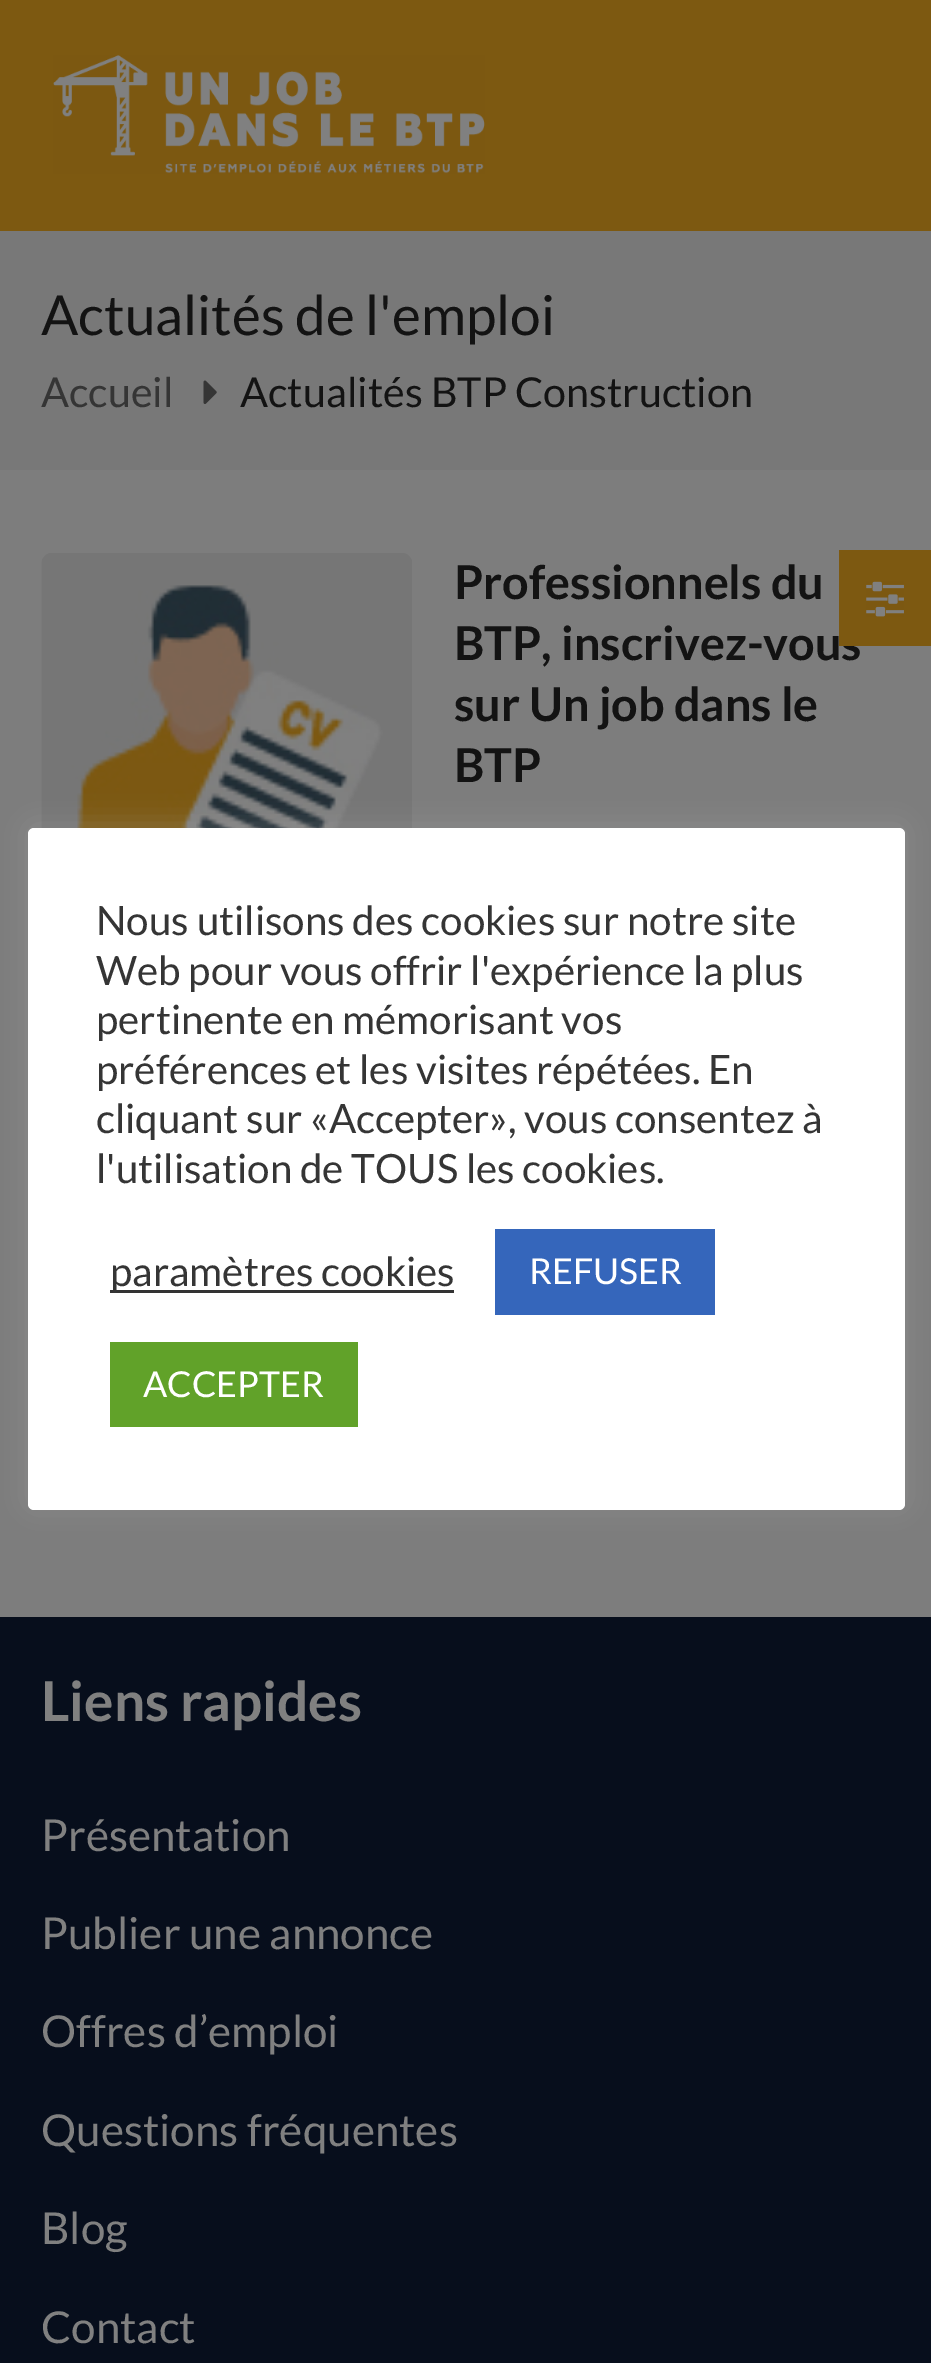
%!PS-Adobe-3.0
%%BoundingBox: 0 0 931 2363
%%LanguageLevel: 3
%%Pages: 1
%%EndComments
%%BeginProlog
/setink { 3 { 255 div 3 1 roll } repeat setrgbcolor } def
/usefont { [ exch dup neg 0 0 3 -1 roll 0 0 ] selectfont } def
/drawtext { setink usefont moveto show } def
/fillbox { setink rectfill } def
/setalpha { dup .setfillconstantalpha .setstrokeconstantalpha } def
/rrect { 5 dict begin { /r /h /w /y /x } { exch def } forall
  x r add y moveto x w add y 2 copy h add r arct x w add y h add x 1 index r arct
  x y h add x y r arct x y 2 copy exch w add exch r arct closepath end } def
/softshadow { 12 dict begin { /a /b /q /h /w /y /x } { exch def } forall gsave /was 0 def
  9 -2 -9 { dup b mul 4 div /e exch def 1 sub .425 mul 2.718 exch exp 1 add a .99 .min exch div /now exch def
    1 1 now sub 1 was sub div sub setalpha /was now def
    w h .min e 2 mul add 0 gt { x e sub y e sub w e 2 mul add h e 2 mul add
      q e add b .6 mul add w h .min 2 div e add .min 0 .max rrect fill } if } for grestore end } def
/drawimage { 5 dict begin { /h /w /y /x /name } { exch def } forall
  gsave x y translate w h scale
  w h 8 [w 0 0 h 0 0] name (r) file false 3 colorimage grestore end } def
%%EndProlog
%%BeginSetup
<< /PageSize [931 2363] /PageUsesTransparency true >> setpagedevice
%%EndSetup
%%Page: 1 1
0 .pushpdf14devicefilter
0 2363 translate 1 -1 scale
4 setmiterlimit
0 0 931 2363 125 125 125 fillbox
0 0 931 231 125 89 17 fillbox
(assets/img1.rgb) 53 55 432 119 drawimage
0 231 931 239 120 120 120 fillbox
(Actualités de l'emploi) 41 335 /Lato-Regular 55 19 19 19 drawtext
(Accueil) 41 407 /Lato-Regular 41.25 53 53 53 drawtext
(assets/img2.rgb) 203 380 14 24 drawimage
(Actualités BTP Construction) 240 407 /Lato-Regular 41.25 19 19 19 drawtext
(assets/img3.rgb) 41 553 371 275 drawimage
(Professionnels du) 454 599 /Lato-Bold 46.75 19 19 19 drawtext
(BTP, inscrivez-vous) 454 660 /Lato-Bold 46.75 19 19 19 drawtext
(sur Un job dans le) 454 721 /Lato-Bold 46.75 19 19 19 drawtext
(BTP) 454 782 /Lato-Bold 46.75 19 19 19 drawtext
839 550 92 96 125 89 17 fillbox
(assets/img4.rgb) 866 581 38 36 drawimage
0 1617 931 746 7 14 28 fillbox
(Liens rapides) 41 1721 /Lato-Bold 55 128 128 128 drawtext
(Présentation) 41 1851 /Lato-Regular 44 128 128 128 drawtext
(Publier une annonce) 41 1949 /Lato-Regular 44 128 128 128 drawtext
(Offres d’emploi) 41 2047 /Lato-Regular 44 128 128 128 drawtext
(Questions fréquentes) 41 2146 /Lato-Regular 44 128 128 128 drawtext
(Blog) 41 2244 /Lato-Regular 44 128 128 128 drawtext
(Contact) 41 2343 /Lato-Regular 44 128 128 128 drawtext
172 171 171 setink
28 825 877 682 6 14 0.3 softshadow
255 255 255 setink
28 828 877 682 6 rrect fill
(Nous utilisons des cookies sur notre site) 96 935 /Lato-Regular 40.3 53 53 53 drawtext
(Web pour vous offrir l'expérience la plus) 96 985 /Lato-Regular 40.3 53 53 53 drawtext
(pertinente en mémorisant vos) 96 1034 /Lato-Regular 40.3 53 53 53 drawtext
(préférences et les visites répétées. En) 96 1084 /Lato-Regular 40.3 53 53 53 drawtext
(cliquant sur «Accepter», vous consentez à) 96 1133 /Lato-Regular 40.3 53 53 53 drawtext
(l'utilisation de TOUS les cookies.) 96 1183 /Lato-Regular 40.3 53 53 53 drawtext
110 1290 344 3 51 51 51 fillbox
(paramètres cookies) 110 1286 /Lato-Regular 40.3 53 53 53 drawtext
495 1229 220 86 53 102 187 fillbox
(REFUSER) 529 1284 /Lato-Regular 35.75 255 255 255 drawtext
110 1342 248 85 97 162 41 fillbox
(ACCEPTER) 143 1397 /Lato-Regular 35.75 255 255 255 drawtext
.poppdf14devicefilter showpage
%%EOF
